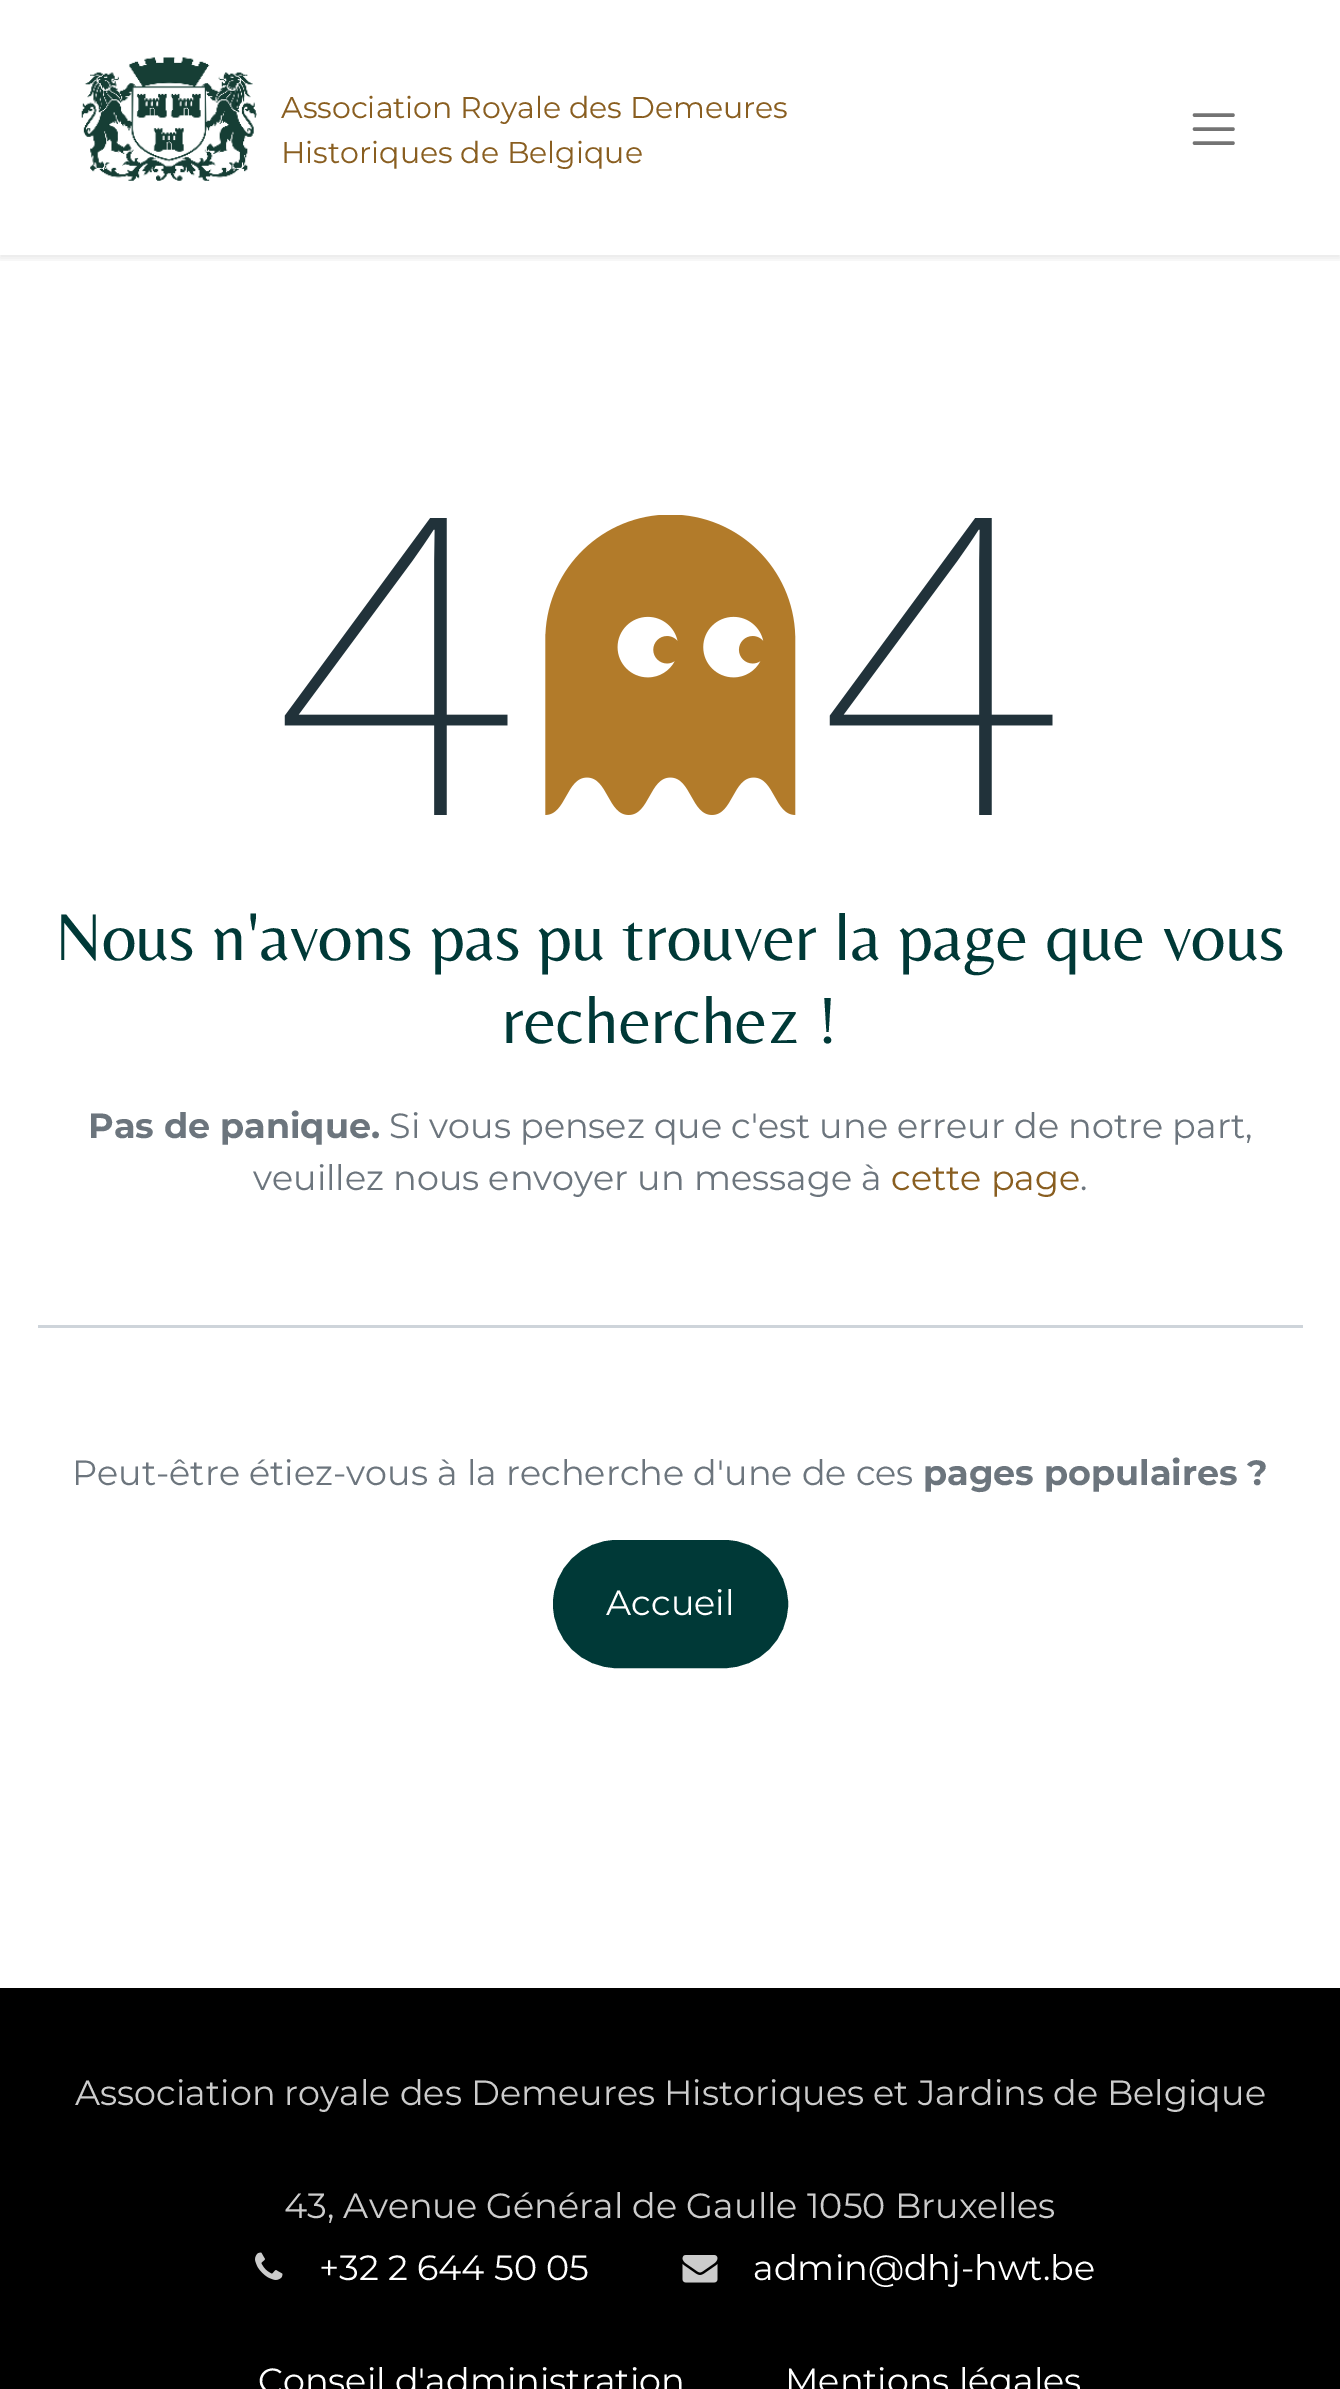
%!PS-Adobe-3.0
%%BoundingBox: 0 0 1340 2389
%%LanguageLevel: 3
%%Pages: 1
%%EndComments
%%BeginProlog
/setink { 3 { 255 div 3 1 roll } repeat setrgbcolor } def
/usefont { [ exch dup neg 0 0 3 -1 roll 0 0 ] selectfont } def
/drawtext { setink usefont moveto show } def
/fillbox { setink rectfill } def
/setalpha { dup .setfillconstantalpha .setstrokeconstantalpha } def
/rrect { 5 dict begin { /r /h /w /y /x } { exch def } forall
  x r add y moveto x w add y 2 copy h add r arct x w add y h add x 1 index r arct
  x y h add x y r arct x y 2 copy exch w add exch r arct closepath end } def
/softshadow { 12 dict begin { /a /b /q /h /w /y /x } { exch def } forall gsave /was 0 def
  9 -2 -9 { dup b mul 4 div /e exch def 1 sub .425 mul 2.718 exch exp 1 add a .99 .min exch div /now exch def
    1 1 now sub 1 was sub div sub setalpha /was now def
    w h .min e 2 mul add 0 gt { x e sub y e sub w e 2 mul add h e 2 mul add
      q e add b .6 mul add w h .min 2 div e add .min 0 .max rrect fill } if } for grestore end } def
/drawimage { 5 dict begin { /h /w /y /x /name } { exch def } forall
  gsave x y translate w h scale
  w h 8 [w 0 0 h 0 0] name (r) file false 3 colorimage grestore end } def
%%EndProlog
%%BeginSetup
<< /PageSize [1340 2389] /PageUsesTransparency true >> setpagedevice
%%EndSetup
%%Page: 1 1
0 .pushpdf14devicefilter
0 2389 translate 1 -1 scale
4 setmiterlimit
0 0 1340 2389 255 255 255 fillbox
gsave
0 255 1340 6 rectclip
0 0 0 setink
0 3 1340 255 0 4 0.1 softshadow
grestore
(assets/img1.rgb) 81 57 176 124 drawimage
(Association Royale des Demeures) 281 118 /Montserrat-Regular 30 137 94 32 drawtext
(Historiques de Belgique) 281 163 /Montserrat-Regular 30 137 94 32 drawtext
115 115 115 setink
3.5 setlinewidth
1 setlinecap
1194.5 115 moveto 1233 115 lineto 1194.5 129 moveto 1233 129 lineto 1194.5 143 moveto 1233 143 lineto stroke
(assets/img2.rgb) 284 515 769 300 drawimage
(Nous n'avons pas pu trouver la page que vous) 55 960 /Belleza-Regular 68.8 0 57 55 drawtext
(recherchez !) 502 1043 /Belleza-Regular 68.8 0 57 55 drawtext
(Pas de panique.) 88 1138 /Montserrat-Bold 35 108 117 125 drawtext
(Si vous pensez que c'est une erreur de notre part,) 389 1138 /Montserrat-Regular 35 108 117 125 drawtext
(veuillez nous envoyer un message à) 253 1190 /Montserrat-Regular 35 108 117 125 drawtext
(cette page) 891 1190 /Montserrat-Regular 35 137 94 32 drawtext
(.) 1080 1190 /Montserrat-Regular 35 108 117 125 drawtext
38 1325 1265 3 206 212 218 fillbox
(Peut-être étiez-vous à la recherche d'une de ces) 72 1485 /Montserrat-Regular 35 108 117 125 drawtext
(pages populaires ?) 923 1485 /Montserrat-Bold 35 108 117 125 drawtext
0 57 55 setink
554.5 1541.5 232 125 62.5 rrect gsave fill grestore
3 setlinewidth
0 setlinecap
stroke
(Accueil) 606 1615 /Montserrat-Regular 35 255 255 255 drawtext
0 1988 1340 401 0 0 0 fillbox
(Association royale des Demeures Historiques et Jardins de Belgique) 75 2105 /Montserrat-Regular 35 204 204 204 drawtext
(43, Avenue Général de Gaulle 1050 Bruxelles) 284 2218 /Montserrat-Regular 35 204 204 204 drawtext
(assets/img3.rgb) 255 2252 28 28 drawimage
(+32 2 644 50 05) 319 2280 /Montserrat-Regular 35 255 255 255 drawtext
(assets/img4.rgb) 682 2255 36 28 drawimage
(admin@dhj-hwt.be) 753 2280 /Montserrat-Regular 35 255 255 255 drawtext
(Conseil d'administration) 258 2393 /Montserrat-Regular 35 255 255 255 drawtext
(Mentions légales) 785 2393 /Montserrat-Regular 35 255 255 255 drawtext
.poppdf14devicefilter showpage
%%EOF
